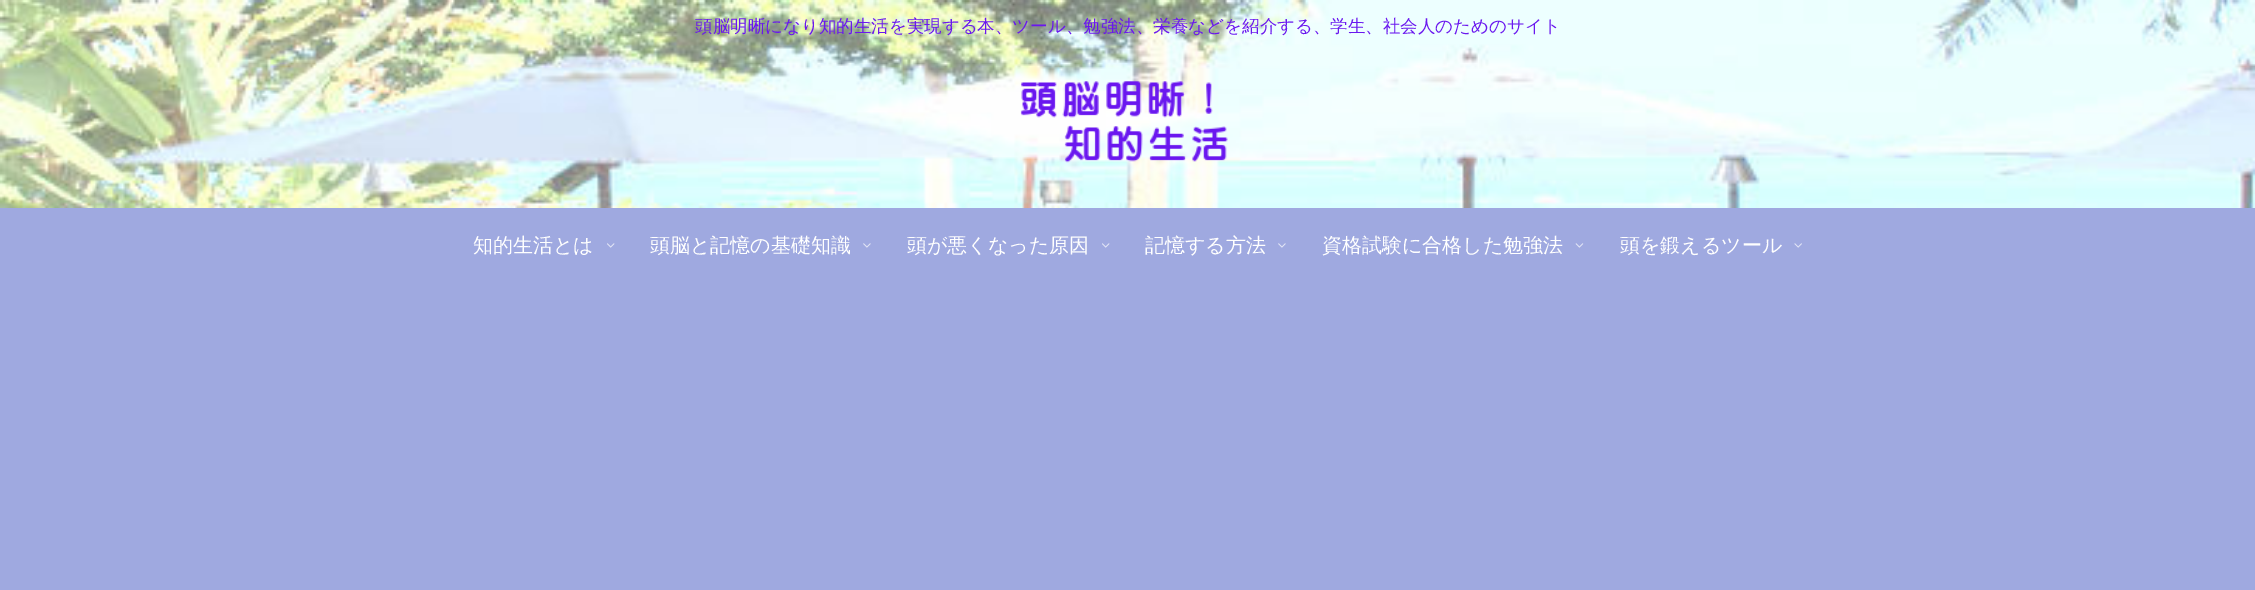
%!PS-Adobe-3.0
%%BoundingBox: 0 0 2255 590
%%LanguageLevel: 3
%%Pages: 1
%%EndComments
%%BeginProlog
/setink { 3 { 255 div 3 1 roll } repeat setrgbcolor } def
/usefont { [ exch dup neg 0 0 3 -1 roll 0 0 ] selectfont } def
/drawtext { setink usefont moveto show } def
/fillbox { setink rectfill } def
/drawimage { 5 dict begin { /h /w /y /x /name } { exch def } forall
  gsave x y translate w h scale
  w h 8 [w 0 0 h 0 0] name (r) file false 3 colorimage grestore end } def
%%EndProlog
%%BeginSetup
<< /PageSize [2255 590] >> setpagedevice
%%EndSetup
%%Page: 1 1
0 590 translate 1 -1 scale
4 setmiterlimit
0 0 2255 590 159 169 224 fillbox
(assets/img1.rgb) 0 0 2255 208 drawimage
(頭脳明晰になり知的生活を実現する本、ツール、勉強法、栄養などを紹介する、学生、社会人のためのサイト) 695 32 /WenQuanYiZenHei-Medium 17.5 106 23 239 drawtext
(assets/img2.rgb) 1020 81 208 82 drawimage
(知的生活とは) 473 252 /WenQuanYiZenHei-Medium 20 255 255 255 drawtext
(assets/img3.rgb) 607 243 8 5 drawimage
(頭脳と記憶の基礎知識) 650 252 /WenQuanYiZenHei-Medium 20 255 255 255 drawtext
(assets/img4.rgb) 863 243 8 5 drawimage
(頭が悪くなった原因) 907 252 /WenQuanYiZenHei-Medium 20 255 255 255 drawtext
(assets/img3.rgb) 1102 243 8 5 drawimage
(記憶する方法) 1145 252 /WenQuanYiZenHei-Medium 20 255 255 255 drawtext
(assets/img4.rgb) 1278 243 8 5 drawimage
(資格試験に合格した勉強法) 1322 252 /WenQuanYiZenHei-Medium 20 255 255 255 drawtext
(assets/img5.rgb) 1575 243 9 5 drawimage
(頭を鍛えるツール) 1620 252 /WenQuanYiZenHei-Medium 20 255 255 255 drawtext
(assets/img6.rgb) 1794 243 8 5 drawimage
showpage
%%EOF
